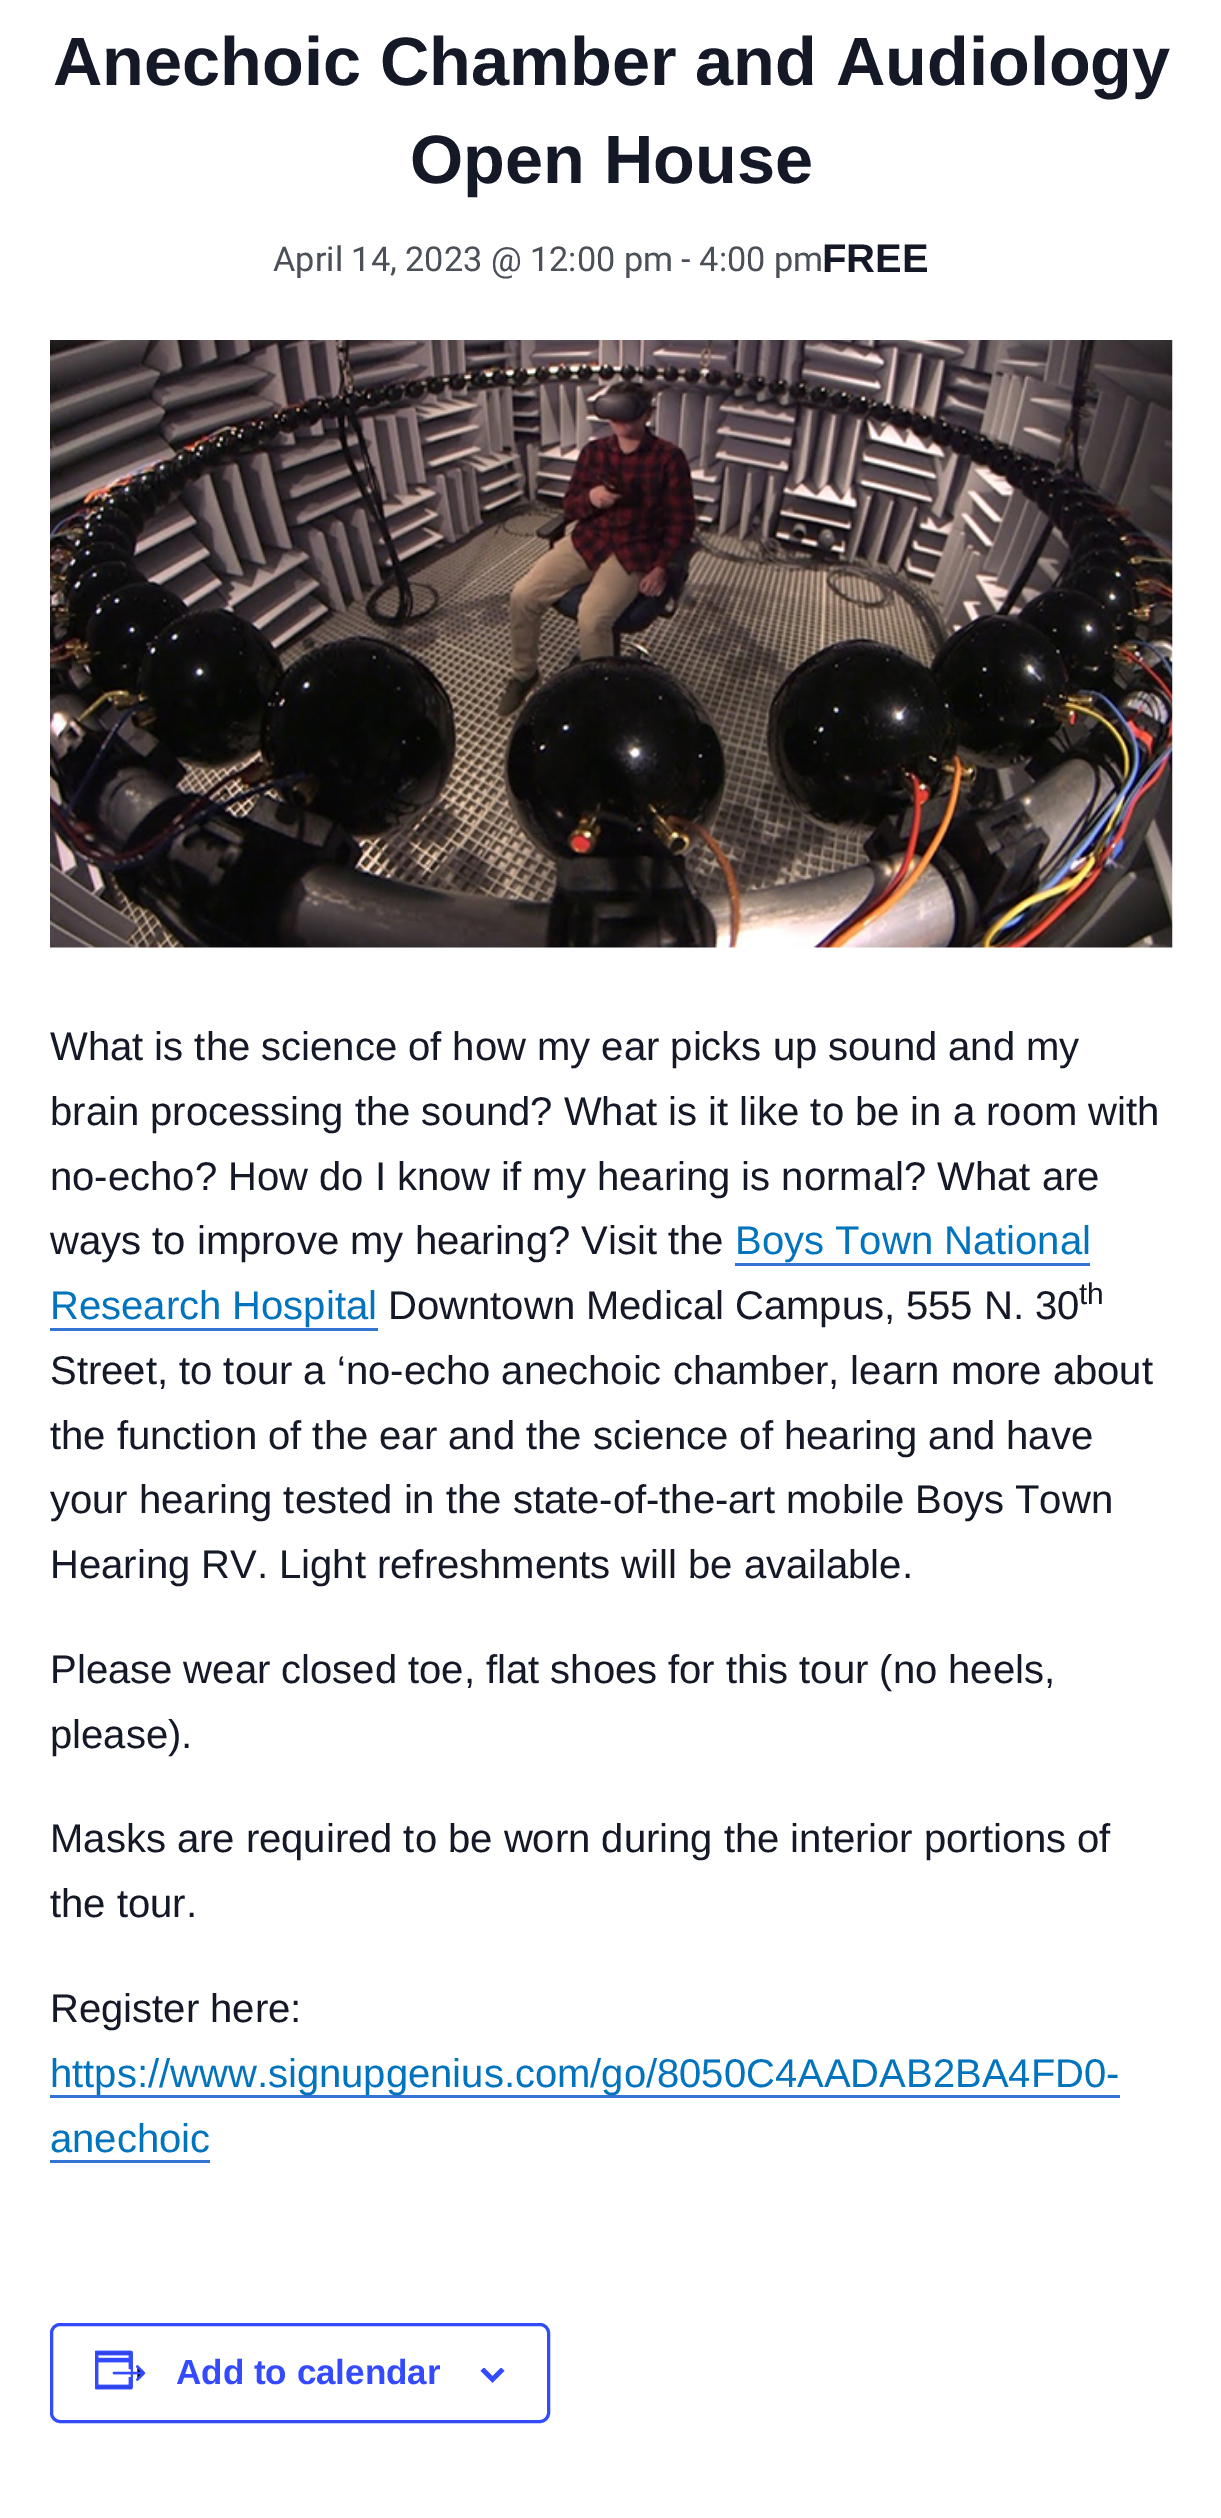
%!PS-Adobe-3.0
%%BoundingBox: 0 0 1221 2518
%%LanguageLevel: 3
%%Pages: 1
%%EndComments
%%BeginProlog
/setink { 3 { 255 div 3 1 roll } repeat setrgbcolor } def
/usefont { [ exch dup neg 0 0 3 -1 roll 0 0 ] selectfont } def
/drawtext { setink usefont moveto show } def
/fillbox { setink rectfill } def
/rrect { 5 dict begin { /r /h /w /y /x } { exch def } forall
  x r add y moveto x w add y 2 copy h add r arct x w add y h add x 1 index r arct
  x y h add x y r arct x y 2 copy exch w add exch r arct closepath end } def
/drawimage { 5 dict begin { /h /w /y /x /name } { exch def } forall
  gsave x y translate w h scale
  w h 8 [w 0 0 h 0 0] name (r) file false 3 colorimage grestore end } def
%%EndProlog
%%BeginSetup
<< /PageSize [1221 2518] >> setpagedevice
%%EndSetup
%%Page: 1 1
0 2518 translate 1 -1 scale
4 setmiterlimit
0 0 1221 2518 255 255 255 fillbox
(Anechoic Chamber and Audiology) 53 85 /LiberationSans-Bold 68.4 20 24 39 drawtext
(Open House) 410 183 /LiberationSans-Bold 68.4 20 24 39 drawtext
(April 14, 2023 @ 12:00 pm - 4:00 pm) 273 271 /Roboto-Regular 34.25 75 79 88 drawtext
(FREE) 822 272 /LiberationSans-Bold 40 20 24 39 drawtext
(assets/img1.rgb) 50 340 1123 608 drawimage
(What is the science of how my ear picks up sound and my) 50 1060 /LiberationSans-Regular 40 20 24 39 drawtext
(brain processing the sound? What is it like to be in a room with) 50 1125 /LiberationSans-Regular 40 20 24 39 drawtext
(no-echo? How do I know if my hearing is normal? What are) 50 1190 /LiberationSans-Regular 40 20 24 39 drawtext
(ways to improve my hearing? Visit the) 50 1254 /LiberationSans-Regular 40 20 24 39 drawtext
(Boys Town National) 735 1254 /LiberationSans-Regular 40 2 116 190 drawtext
735 1263 355 3 51 116 212 fillbox
(Research Hospital) 50 1319 /LiberationSans-Regular 40 2 116 190 drawtext
50 1328 328 3 51 116 212 fillbox
(Downtown Medical Campus, 555 N. 30) 388 1319 /LiberationSans-Regular 40 20 24 39 drawtext
(th) 1079 1304 /LiberationSans-Regular 30 20 24 39 drawtext
(Street, to tour a ‘no-echo anechoic chamber, learn more about) 50 1384 /LiberationSans-Regular 40 20 24 39 drawtext
(the function of the ear and the science of hearing and have) 50 1449 /LiberationSans-Regular 40 20 24 39 drawtext
(your hearing tested in the state-of-the-art mobile Boys Town) 50 1513 /LiberationSans-Regular 40 20 24 39 drawtext
(Hearing RV. Light refreshments will be available.) 50 1578 /LiberationSans-Regular 40 20 24 39 drawtext
(Please wear closed toe, flat shoes for this tour \(no heels,) 50 1683 /LiberationSans-Regular 40 20 24 39 drawtext
(please\).) 50 1748 /LiberationSans-Regular 40 20 24 39 drawtext
(Masks are required to be worn during the interior portions of) 50 1852 /LiberationSans-Regular 40 20 24 39 drawtext
(the tour.) 50 1917 /LiberationSans-Regular 40 20 24 39 drawtext
(Register here:) 50 2022 /LiberationSans-Regular 40 20 24 39 drawtext
50 2095 1070 3 51 116 212 fillbox
(https://www.signupgenius.com/go/8050C4AADAB2BA4FD0-) 50 2087 /LiberationSans-Regular 40 2 116 190 drawtext
(anechoic) 50 2152 /LiberationSans-Regular 40 2 116 190 drawtext
50 2160 160 3 51 116 212 fillbox
51 74 255 setink
3 setlinewidth
51.5 2324.5 497 97 8.5 rrect stroke
(assets/img2.rgb) 95 2350 51 40 drawimage
(Add to calendar) 176 2384 /LiberationSans-Bold 35 51 74 255 drawtext
(assets/img3.rgb) 480 2368 25 15 drawimage
showpage
%%EOF
